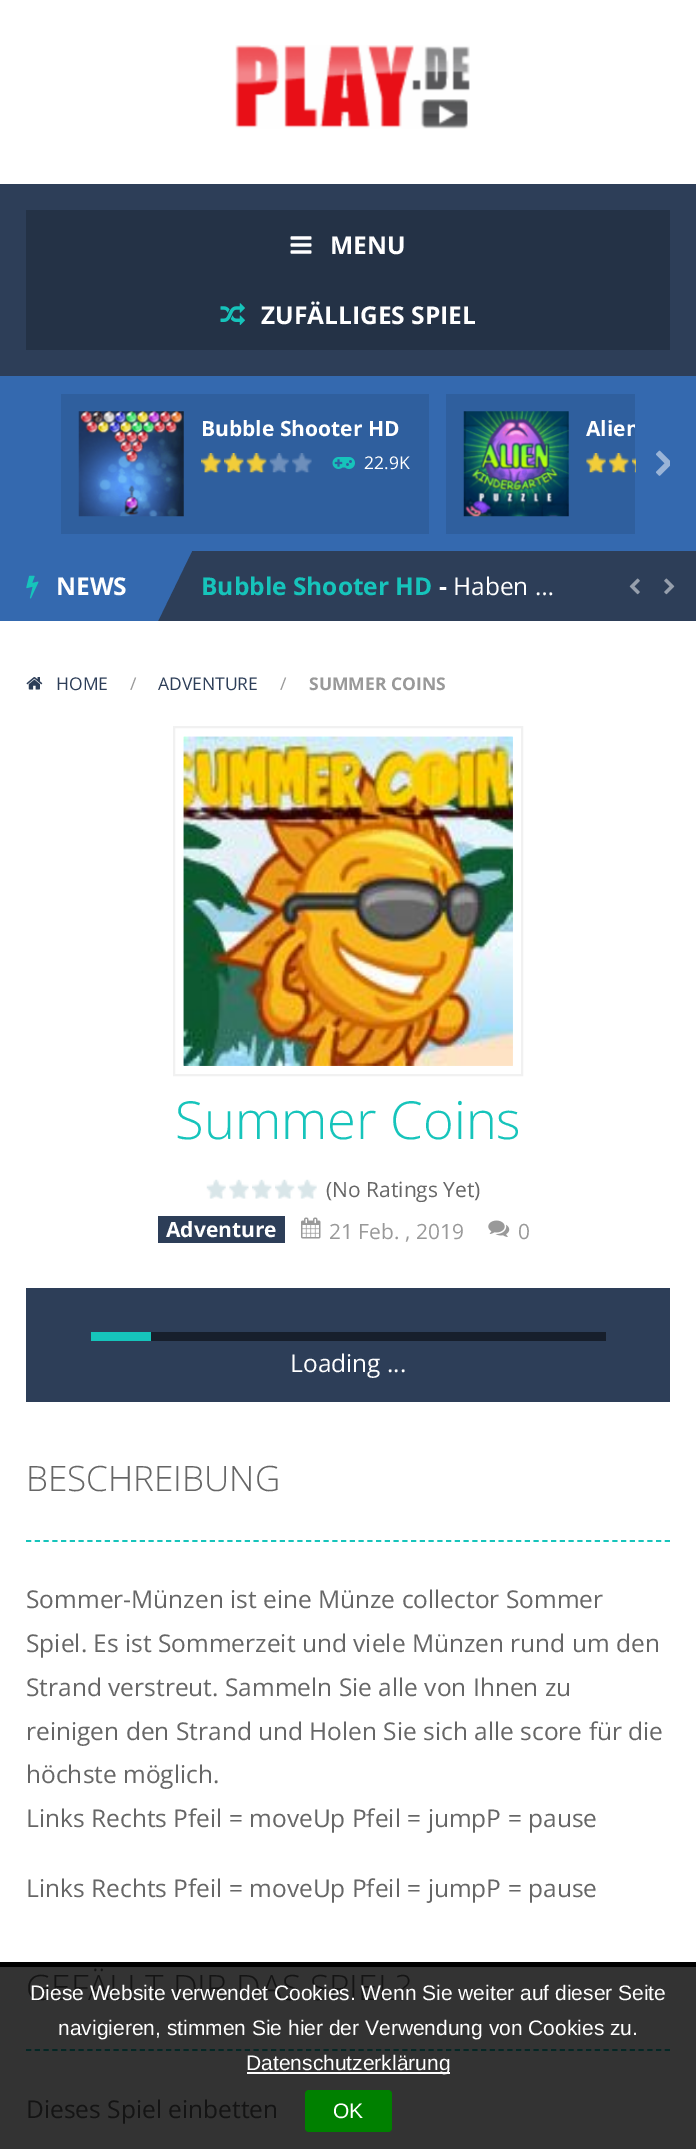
%!PS-Adobe-3.0
%%BoundingBox: 0 0 696 2149
%%LanguageLevel: 3
%%Pages: 1
%%EndComments
%%BeginProlog
/setink { 3 { 255 div 3 1 roll } repeat setrgbcolor } def
/usefont { [ exch dup neg 0 0 3 -1 roll 0 0 ] selectfont } def
/drawtext { setink usefont moveto show } def
/fillbox { setink rectfill } def
/rrect { 5 dict begin { /r /h /w /y /x } { exch def } forall
  x r add y moveto x w add y 2 copy h add r arct x w add y h add x 1 index r arct
  x y h add x y r arct x y 2 copy exch w add exch r arct closepath end } def
/drawimage { 5 dict begin { /h /w /y /x /name } { exch def } forall
  gsave x y translate w h scale
  w h 8 [w 0 0 h 0 0] name (r) file false 3 colorimage grestore end } def
%%EndProlog
%%BeginSetup
<< /PageSize [696 2149] >> setpagedevice
%%EndSetup
%%Page: 1 1
0 2149 translate 1 -1 scale
4 setmiterlimit
0 0 696 2149 255 255 255 fillbox
(assets/img1.rgb) 235 45 235 84 drawimage
0 184 696 192 45 62 88 fillbox
26 210 644 140 36 50 70 fillbox
(assets/img2.rgb) 290 236 22 18 drawimage
(MENU) 330 254 /OpenSans-Bold 24.5 255 255 255 drawtext
(assets/img3.rgb) 220 303 25 22 drawimage
(ZUFÄLLIGES SPIEL) 261 324 /OpenSans-Bold 24.5 255 255 255 drawtext
0 376 696 175 52 105 175 fillbox
61 394 368 140 47 95 158 fillbox
(assets/img4.rgb) 78 411 106 106 drawimage
(Bubble Shooter HD) 201 436 /OpenSans-Bold 21 255 255 255 drawtext
(assets/img5.rgb) 201 453 21 20 drawimage
(assets/img6.rgb) 224 453 20 20 drawimage
(assets/img7.rgb) 246 453 21 20 drawimage
(assets/img8.rgb) 269 453 21 20 drawimage
(assets/img9.rgb) 292 453 20 20 drawimage
(assets/img10.rgb) 332 457 23 12 drawimage
(22.9K) 364 469 /OpenSans-Regular 17.5 255 255 255 drawtext
446 394 189 140 47 95 158 fillbox
(assets/img11.rgb) 463 411 106 106 drawimage
gsave
61 394 574 140 rectclip
(Alien) 586 436 /OpenSans-Bold 21 255 255 255 drawtext
grestore
(assets/img12.rgb) 586 453 20 20 drawimage
(assets/img13.rgb) 608 453 22 20 drawimage
(assets/img14.rgb) 631 458 5 15 drawimage
(assets/img15.rgb) 656 450 14 26 drawimage
158 551 538 70 45 62 88 fillbox
0 551 158 70 52 105 175 fillbox
(assets/img16.rgb) 26 575 13 24 drawimage
(NEWS) 56 595 /OpenSans-Bold 24.5 255 255 255 drawtext
52 105 175 setink
158 551 moveto 192 551 lineto 158 621 lineto closepath fill
(Bubble Shooter HD) 201 595 /OpenSans-Bold 24.5 22 196 187 drawtext
(-) 439 595 /OpenSans-Bold 24.5 255 255 255 drawtext
(Haben …) 453 595 /OpenSans-Regular 24.5 255 255 255 drawtext
(assets/img17.rgb) 629 578 11 17 drawimage
(assets/img18.rgb) 664 578 11 17 drawimage
0 1967 696 182 51 51 51 fillbox
(assets/img19.rgb) 26 677 17 13 drawimage
(HOME) 56 690 /OpenSans-Regular 17.5 45 62 88 drawtext
(/) 130 690 /OpenSans-Regular 17.5 153 153 153 drawtext
(ADVENTURE) 158 690 /OpenSans-Regular 17.5 45 62 88 drawtext
(/) 280 690 /OpenSans-Regular 17.5 153 153 153 drawtext
(SUMMER COINS) 309 690 /OpenSans-Bold 17.5 153 153 153 drawtext
241 241 241 setink
2 setlinewidth
174 727 348 348 rectstroke
(assets/img20.rgb) 183 736 330 330 drawimage
(assets/img21.rgb) 183 736 330 330 drawimage
(Summer Coins) 175 1139 /OpenSans-Light 52.5 22 196 187 drawtext
(assets/img22.rgb) 206 1179 20 20 drawimage
(assets/img23.rgb) 229 1179 20 20 drawimage
(assets/img24.rgb) 252 1179 20 20 drawimage
(assets/img25.rgb) 275 1179 20 20 drawimage
(assets/img26.rgb) 297 1179 20 20 drawimage
(\(No Ratings Yet\)) 326 1197 /OpenSans-Regular 21 102 102 102 drawtext
158 1216 127 27 45 62 88 fillbox
(Adventure) 166 1237 /OpenSans-Bold 21 255 255 255 drawtext
(assets/img27.rgb) 301 1217 20 22 drawimage
(21 Feb. , 2019) 329 1239 /OpenSans-Regular 21 153 153 153 drawtext
(assets/img28.rgb) 488 1220 22 17 drawimage
(0) 518 1239 /OpenSans-Regular 21 153 153 153 drawtext
26 1288 644 114 45 62 88 fillbox
151 1332 455 9 23 31 44 fillbox
91 1332 60 9 22 196 187 fillbox
(Loading ...) 290 1372 /OpenSans-Regular 24.5 255 255 255 drawtext
22 196 187 setink
1.8 setlinewidth
[5.25 3.5] 0 setdash
26 1541 moveto 670 1541 lineto stroke
(BESCHREIBUNG) 26 1491 /OpenSans-Light 35 102 102 102 drawtext
(Sommer-Münzen ist eine Münze collector Sommer) 26 1608 /OpenSans-Regular 24.5 102 102 102 drawtext
(Spiel. Es ist Sommerzeit und viele Münzen rund um den) 26 1652 /OpenSans-Regular 24.5 102 102 102 drawtext
(Strand verstreut. Sammeln Sie alle von Ihnen zu) 26 1696 /OpenSans-Regular 24.5 102 102 102 drawtext
(reinigen den Strand und Holen Sie sich alle score für die) 26 1740 /OpenSans-Regular 24.5 102 102 102 drawtext
(höchste möglich.) 26 1783 /OpenSans-Regular 24.5 102 102 102 drawtext
(Links Rechts Pfeil = moveUp Pfeil = jumpP = pause) 26 1827 /OpenSans-Regular 24.5 102 102 102 drawtext
(Links Rechts Pfeil = moveUp Pfeil = jumpP = pause) 26 1897 /OpenSans-Regular 24.5 102 102 102 drawtext
4 39 37 setink
26 2050 moveto 670 2050 lineto stroke
(GEFÄLLT DIR DAS SPIEL?) 26 2000 /OpenSans-Light 35 20 20 20 drawtext
(Dieses Spiel einbetten) 26 2118 /OpenSans-Regular 24.5 20 20 20 drawtext
0 1962 696 5 0 0 0 fillbox
(Diese Website verwendet Cookies. Wenn Sie weiter auf dieser Seite) 30 2000 /LiberationSans-Regular 21 255 255 255 drawtext
(navigieren, stimmen Sie hier der Verwendung von Cookies zu.) 58 2035 /LiberationSans-Regular 21 255 255 255 drawtext
247 2072 203 2 255 255 255 fillbox
(Datenschutzerklärung) 246 2070 /LiberationSans-Regular 21 255 255 255 drawtext
0 128 0 setink
305 2090 87 42 4 rrect fill
(OK) 333 2118 /LiberationSans-Regular 21 255 255 255 drawtext
showpage
%%EOF
